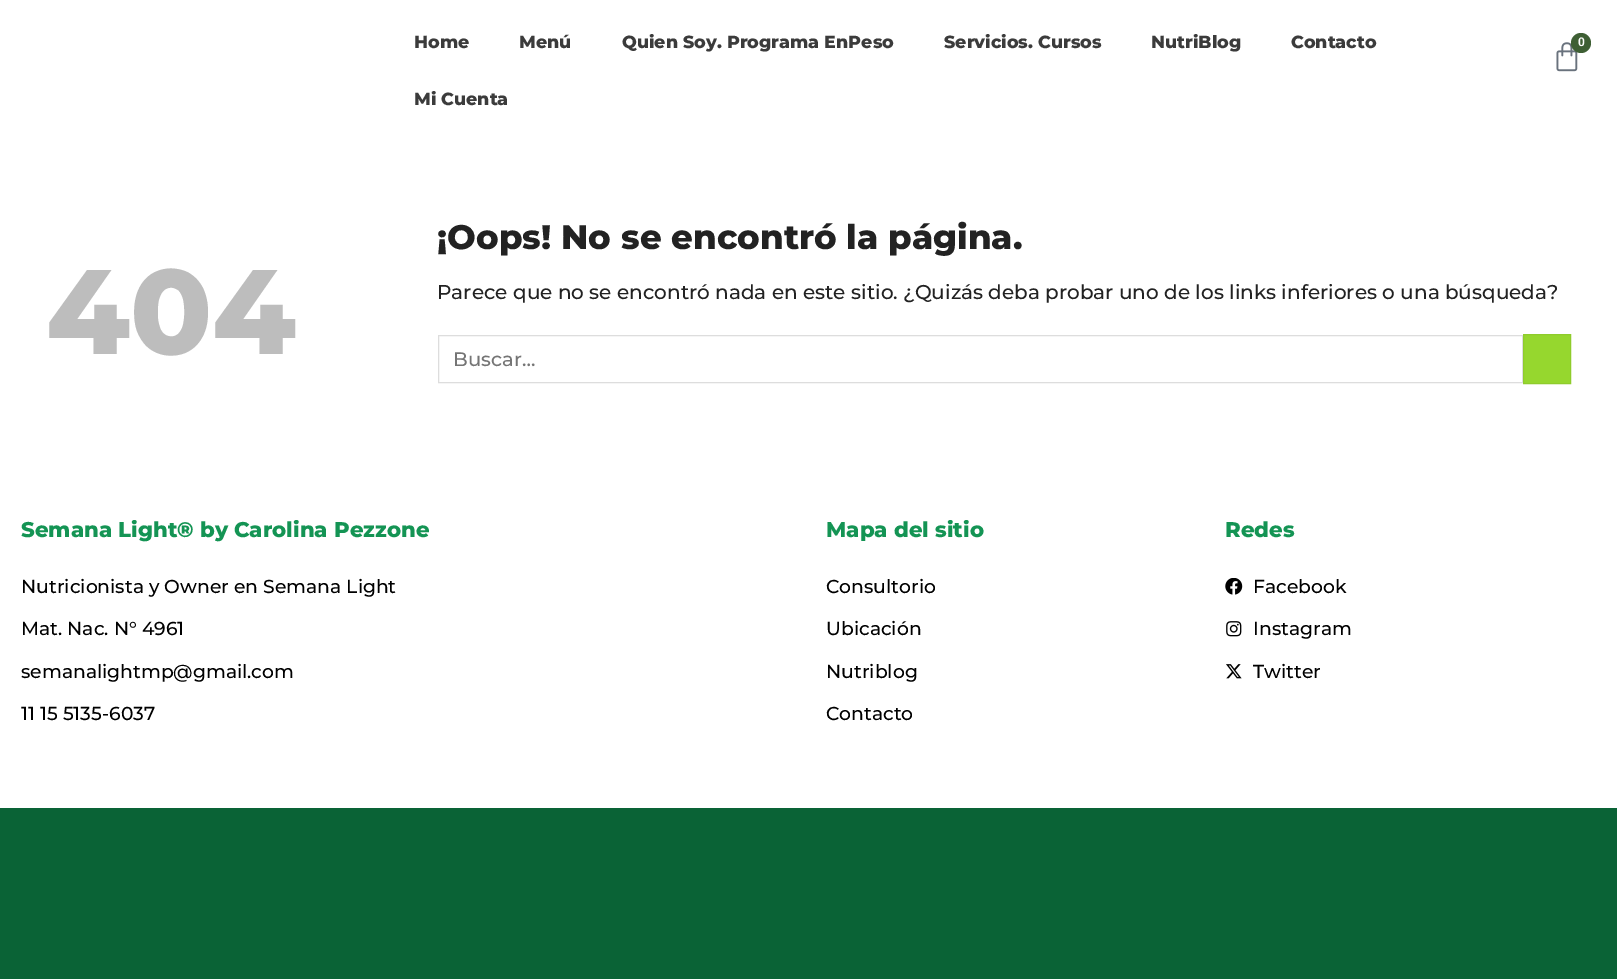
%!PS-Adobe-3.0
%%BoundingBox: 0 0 1617 979
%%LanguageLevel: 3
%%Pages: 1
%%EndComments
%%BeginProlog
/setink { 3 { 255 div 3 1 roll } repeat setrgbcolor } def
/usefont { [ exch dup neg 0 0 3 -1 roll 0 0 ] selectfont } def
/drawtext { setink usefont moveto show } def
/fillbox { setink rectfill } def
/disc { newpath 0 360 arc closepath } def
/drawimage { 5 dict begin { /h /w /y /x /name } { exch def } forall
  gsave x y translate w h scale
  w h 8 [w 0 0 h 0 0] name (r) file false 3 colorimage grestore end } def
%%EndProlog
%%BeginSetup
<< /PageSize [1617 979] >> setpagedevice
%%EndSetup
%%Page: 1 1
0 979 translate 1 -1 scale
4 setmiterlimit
0 0 1617 979 10 99 54 fillbox
0 0 1617 808 255 255 255 fillbox
(Home) 414 48 /Montserrat-ExtraBold 17.5 59 59 59 drawtext
(Menú) 519 48 /Montserrat-ExtraBold 17.5 59 59 59 drawtext
(Quien Soy. Programa EnPeso) 622 48 /Montserrat-ExtraBold 17.5 59 59 59 drawtext
(Servicios. Cursos) 944 48 /Montserrat-ExtraBold 17.5 59 59 59 drawtext
(NutriBlog) 1151 48 /Montserrat-ExtraBold 17.5 59 59 59 drawtext
(Contacto) 1291 48 /Montserrat-ExtraBold 17.5 59 59 59 drawtext
(Mi Cuenta) 414 105 /Montserrat-ExtraBold 17.5 59 59 59 drawtext
(assets/img1.rgb) 1556 42 22 30 drawimage
62 95 52 setink
1581 43 10 disc fill
(0) 1578 46 /Roboto-SemiBold 12 255 255 255 drawtext
(404) 46 354 /Montserrat-ExtraBold 120 189 189 189 drawtext
(¡Oops! No se encontró la página.) 437 249 /Montserrat-ExtraBold 34 34 34 34 drawtext
(Parece que no se encontró nada en este sitio. ¿Quizás deba probar uno de los links inferiores o una búsqueda?) 437 299 /Montserrat-Medium 20 34 34 34 drawtext
221 221 221 setink
438.5 335.5 1084 47 rectstroke
(Buscar…) 453 366 /Montserrat-Medium 19.5 117 117 117 drawtext
150 215 46 setink
1523.5 334.5 moveto 1570.5 334.5 lineto 1570.5 383.5 lineto 1523.5 383.5 lineto closepath gsave fill grestore
143 204 44 setink
stroke
(Semana Light® by Carolina Pezzone) 21 537 /Montserrat-ExtraBold 21.25 20 148 84 drawtext
(Nutricionista y Owner en Semana Light) 21 593 /Montserrat-Medium 18.75 0 0 0 drawtext
(Mat. Nac. N° 4961) 21 635 /Montserrat-Medium 18.75 0 0 0 drawtext
(semanalightmp@gmail.com) 21 678 /Montserrat-Medium 18.75 0 0 0 drawtext
(11 15 5135-6037) 21 720 /Montserrat-Medium 18.75 0 0 0 drawtext
(Mapa del sitio) 826 537 /Montserrat-ExtraBold 21.25 20 148 84 drawtext
(Consultorio) 826 593 /Montserrat-Medium 18.75 0 0 0 drawtext
(Ubicación) 826 635 /Montserrat-Medium 18.75 0 0 0 drawtext
(Nutriblog) 826 678 /Montserrat-Medium 18.75 0 0 0 drawtext
(Contacto) 826 720 /Montserrat-Medium 18.75 0 0 0 drawtext
(Redes) 1225 537 /Montserrat-ExtraBold 21.25 20 148 84 drawtext
(assets/img2.rgb) 1225 578 18 17 drawimage
(Facebook) 1253 593 /Montserrat-Medium 18.75 0 0 0 drawtext
(assets/img3.rgb) 1226 621 16 16 drawimage
(Instagram) 1253 635 /Montserrat-Medium 18.75 0 0 0 drawtext
(assets/img4.rgb) 1226 664 16 15 drawimage
(Twitter) 1253 678 /Montserrat-Medium 18.75 0 0 0 drawtext
showpage
%%EOF
